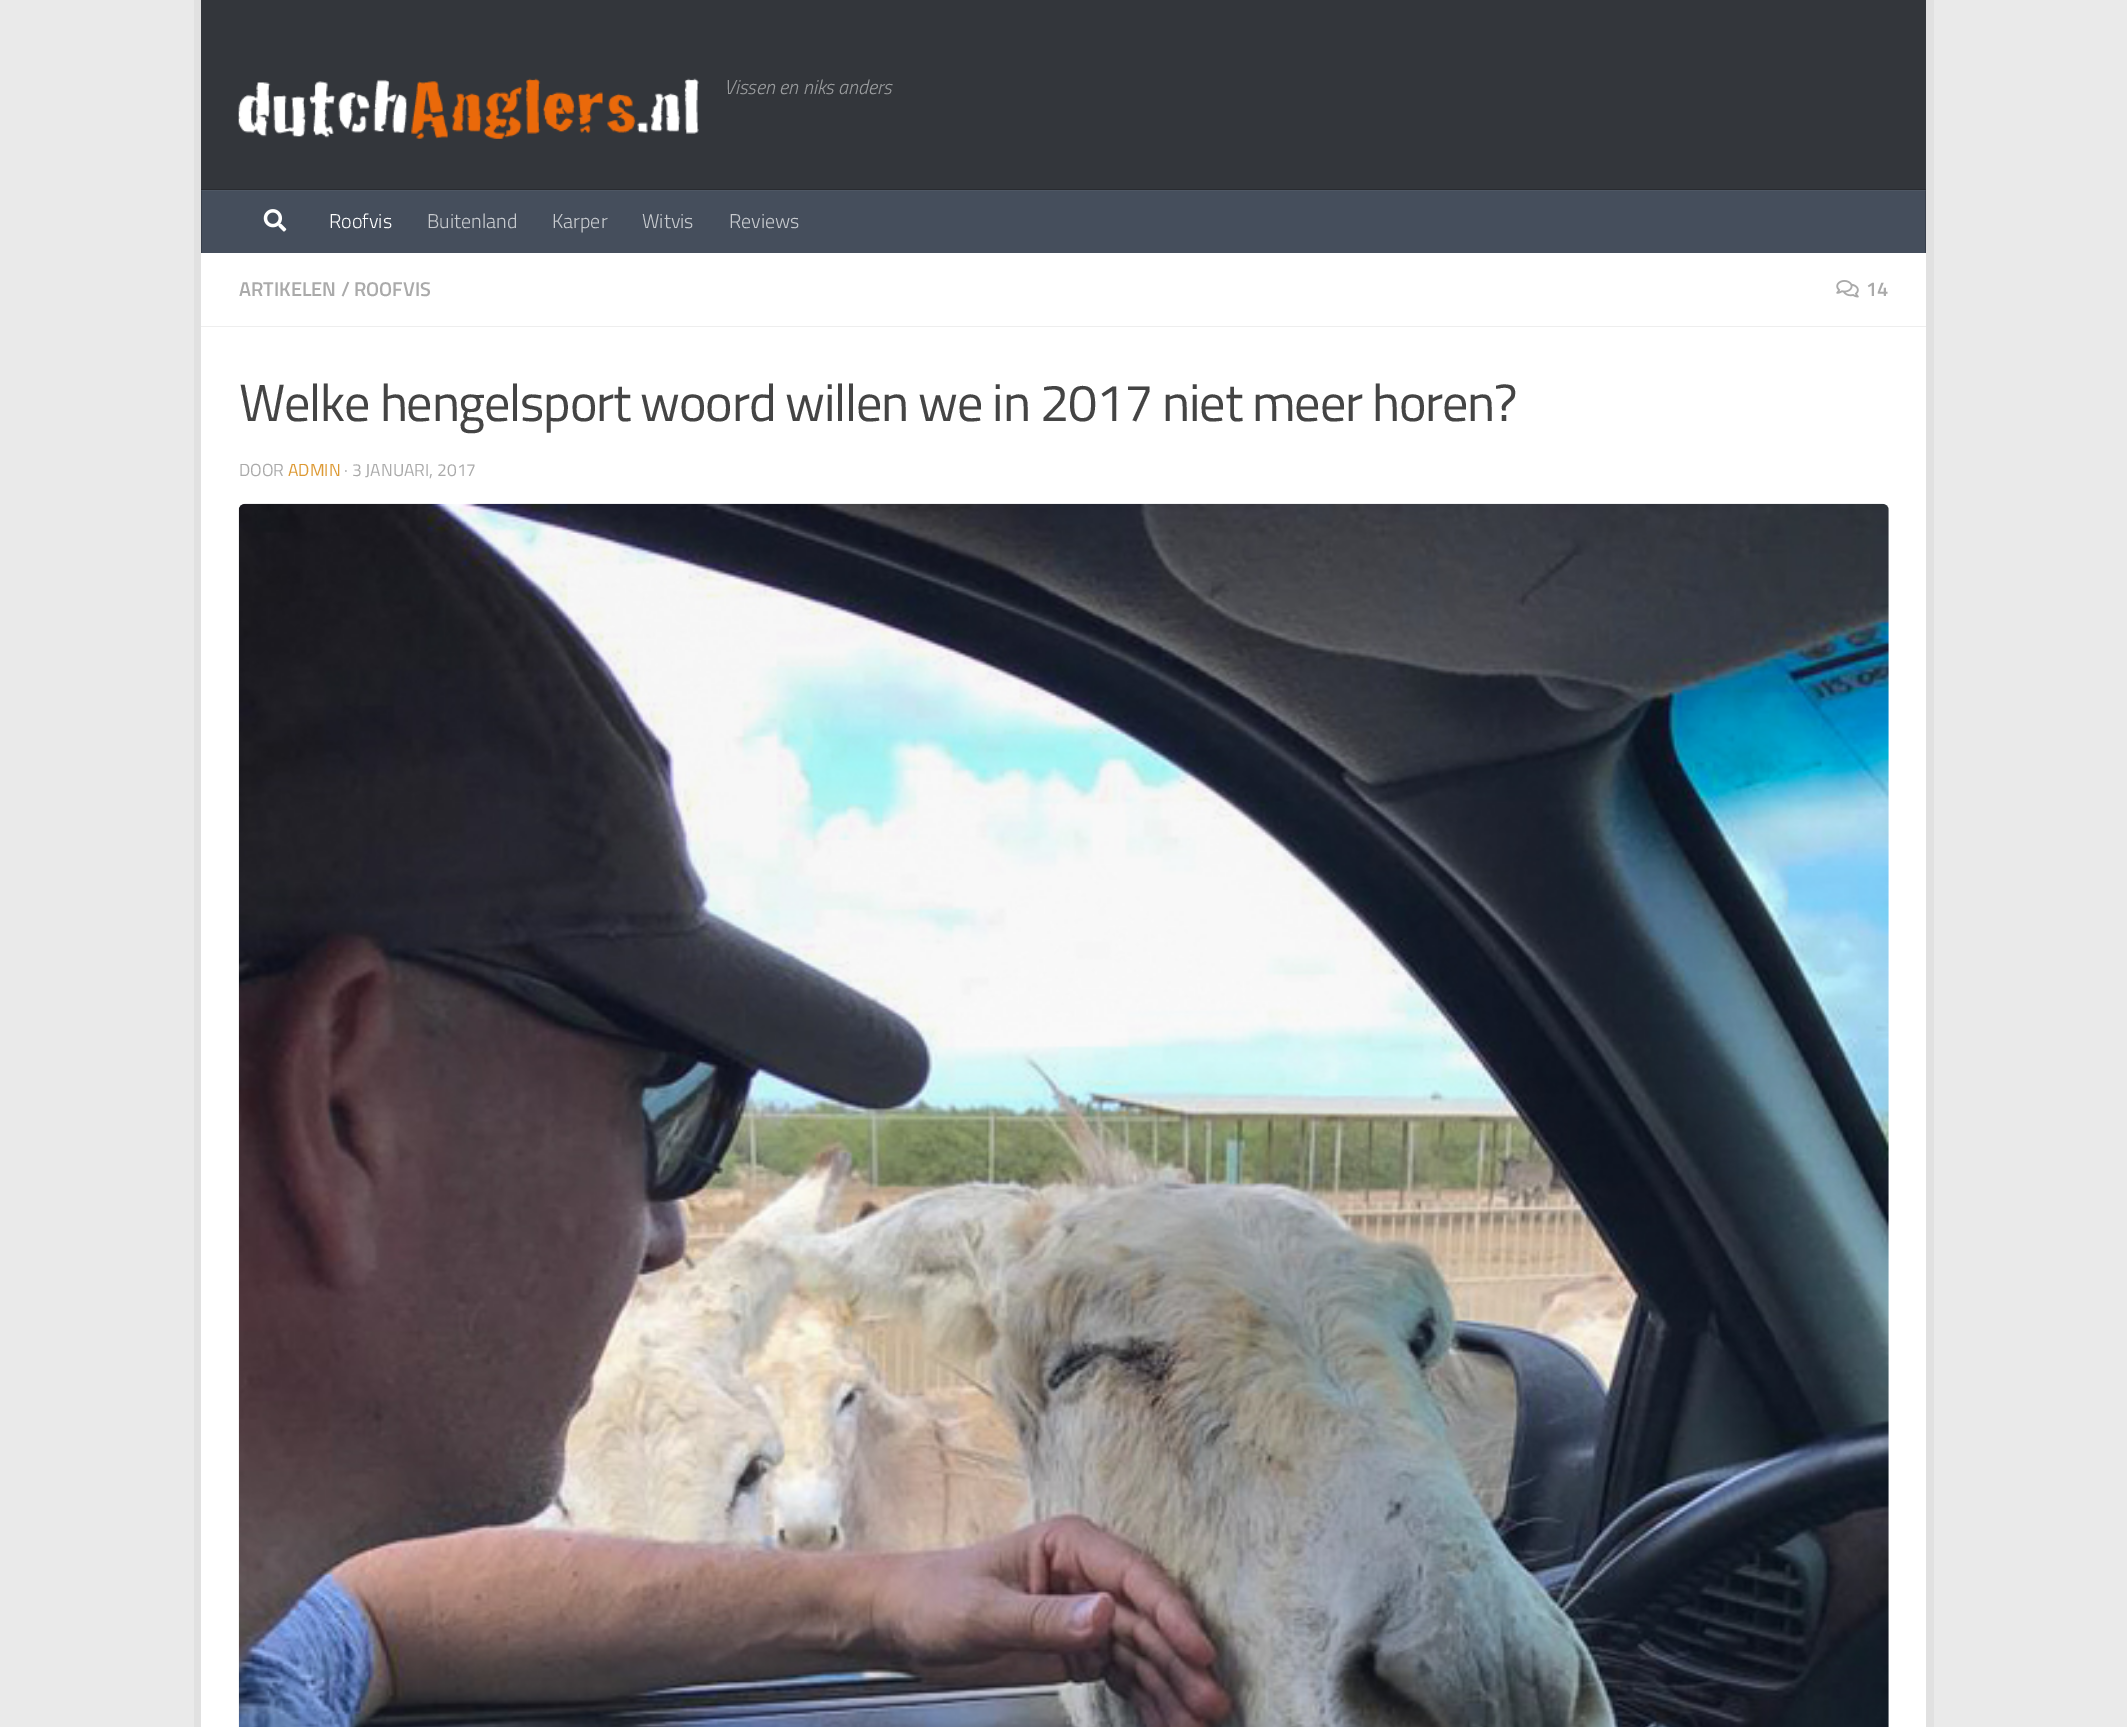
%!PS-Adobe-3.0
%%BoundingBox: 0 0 2127 1727
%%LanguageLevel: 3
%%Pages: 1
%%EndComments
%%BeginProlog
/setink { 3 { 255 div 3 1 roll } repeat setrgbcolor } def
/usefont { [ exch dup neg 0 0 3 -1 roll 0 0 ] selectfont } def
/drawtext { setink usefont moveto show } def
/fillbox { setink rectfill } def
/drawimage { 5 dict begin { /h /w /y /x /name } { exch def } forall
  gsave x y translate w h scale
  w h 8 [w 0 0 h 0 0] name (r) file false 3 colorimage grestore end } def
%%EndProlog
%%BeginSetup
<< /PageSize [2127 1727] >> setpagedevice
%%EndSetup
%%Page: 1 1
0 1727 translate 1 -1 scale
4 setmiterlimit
0 0 2127 1727 234 234 234 fillbox
194 0 7 1727 225 225 225 fillbox
1926 0 8 1727 225 225 225 fillbox
201 0 1725 189 51 54 59 fillbox
(assets/img1.rgb) 238 78 461 61 drawimage
(Vissen en niks anders) 724 94 /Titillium-LightItalic 20 153 155 157 drawtext
41 43 47 setink
201 189 moveto 201 251 lineto 201 190 lineto 1926 190 lineto 1926 189 lineto closepath fill
202 191 1723 62 69 78 92 fillbox
201 190 1725 1 78 87 100 fillbox
1925 190 1 63 55 62 74 fillbox
1925 190 1 1 65 72 83 fillbox
201 190 1 63 55 62 74 fillbox
201 190 1 1 65 72 83 fillbox
(assets/img2.rgb) 263 209 24 23 drawimage
(Roofvis) 329 228 /Titillium-Light 20 255 255 255 drawtext
(Buitenland) 427 228 /Titillium-Light 20 199 202 206 drawtext
(Karper) 552 228 /Titillium-Light 20 199 202 206 drawtext
(Witvis) 642 228 /Titillium-Light 20 199 202 206 drawtext
(Reviews) 729 228 /Titillium-Light 20 199 202 206 drawtext
201 253 1725 1474 255 255 255 fillbox
201 326 1725 1 238 238 238 fillbox
(ARTIKELEN / ROOFVIS) 239 296 /Titillium-SemiBold 20 170 170 170 drawtext
(assets/img3.rgb) 1836 280 23 18 drawimage
(14) 1866 296 /Titillium-SemiBold 20 170 170 170 drawtext
/Titillium-Regular 52.4 usefont
68 68 68 setink
239 421 moveto -1.25 0 (Welke hengelsport woord willen we in 2017 niet meer horen?) ashow
(DOOR) 239 476 /Titillium-Regular 17.5 170 170 170 drawtext
(ADMIN) 288 476 /Titillium-Regular 17.5 221 153 51 drawtext
(· 3 JANUARI, 2017) 344 476 /Titillium-Regular 17.5 170 170 170 drawtext
(assets/img4.rgb) 238 503 1651 1224 drawimage
showpage
%%EOF
